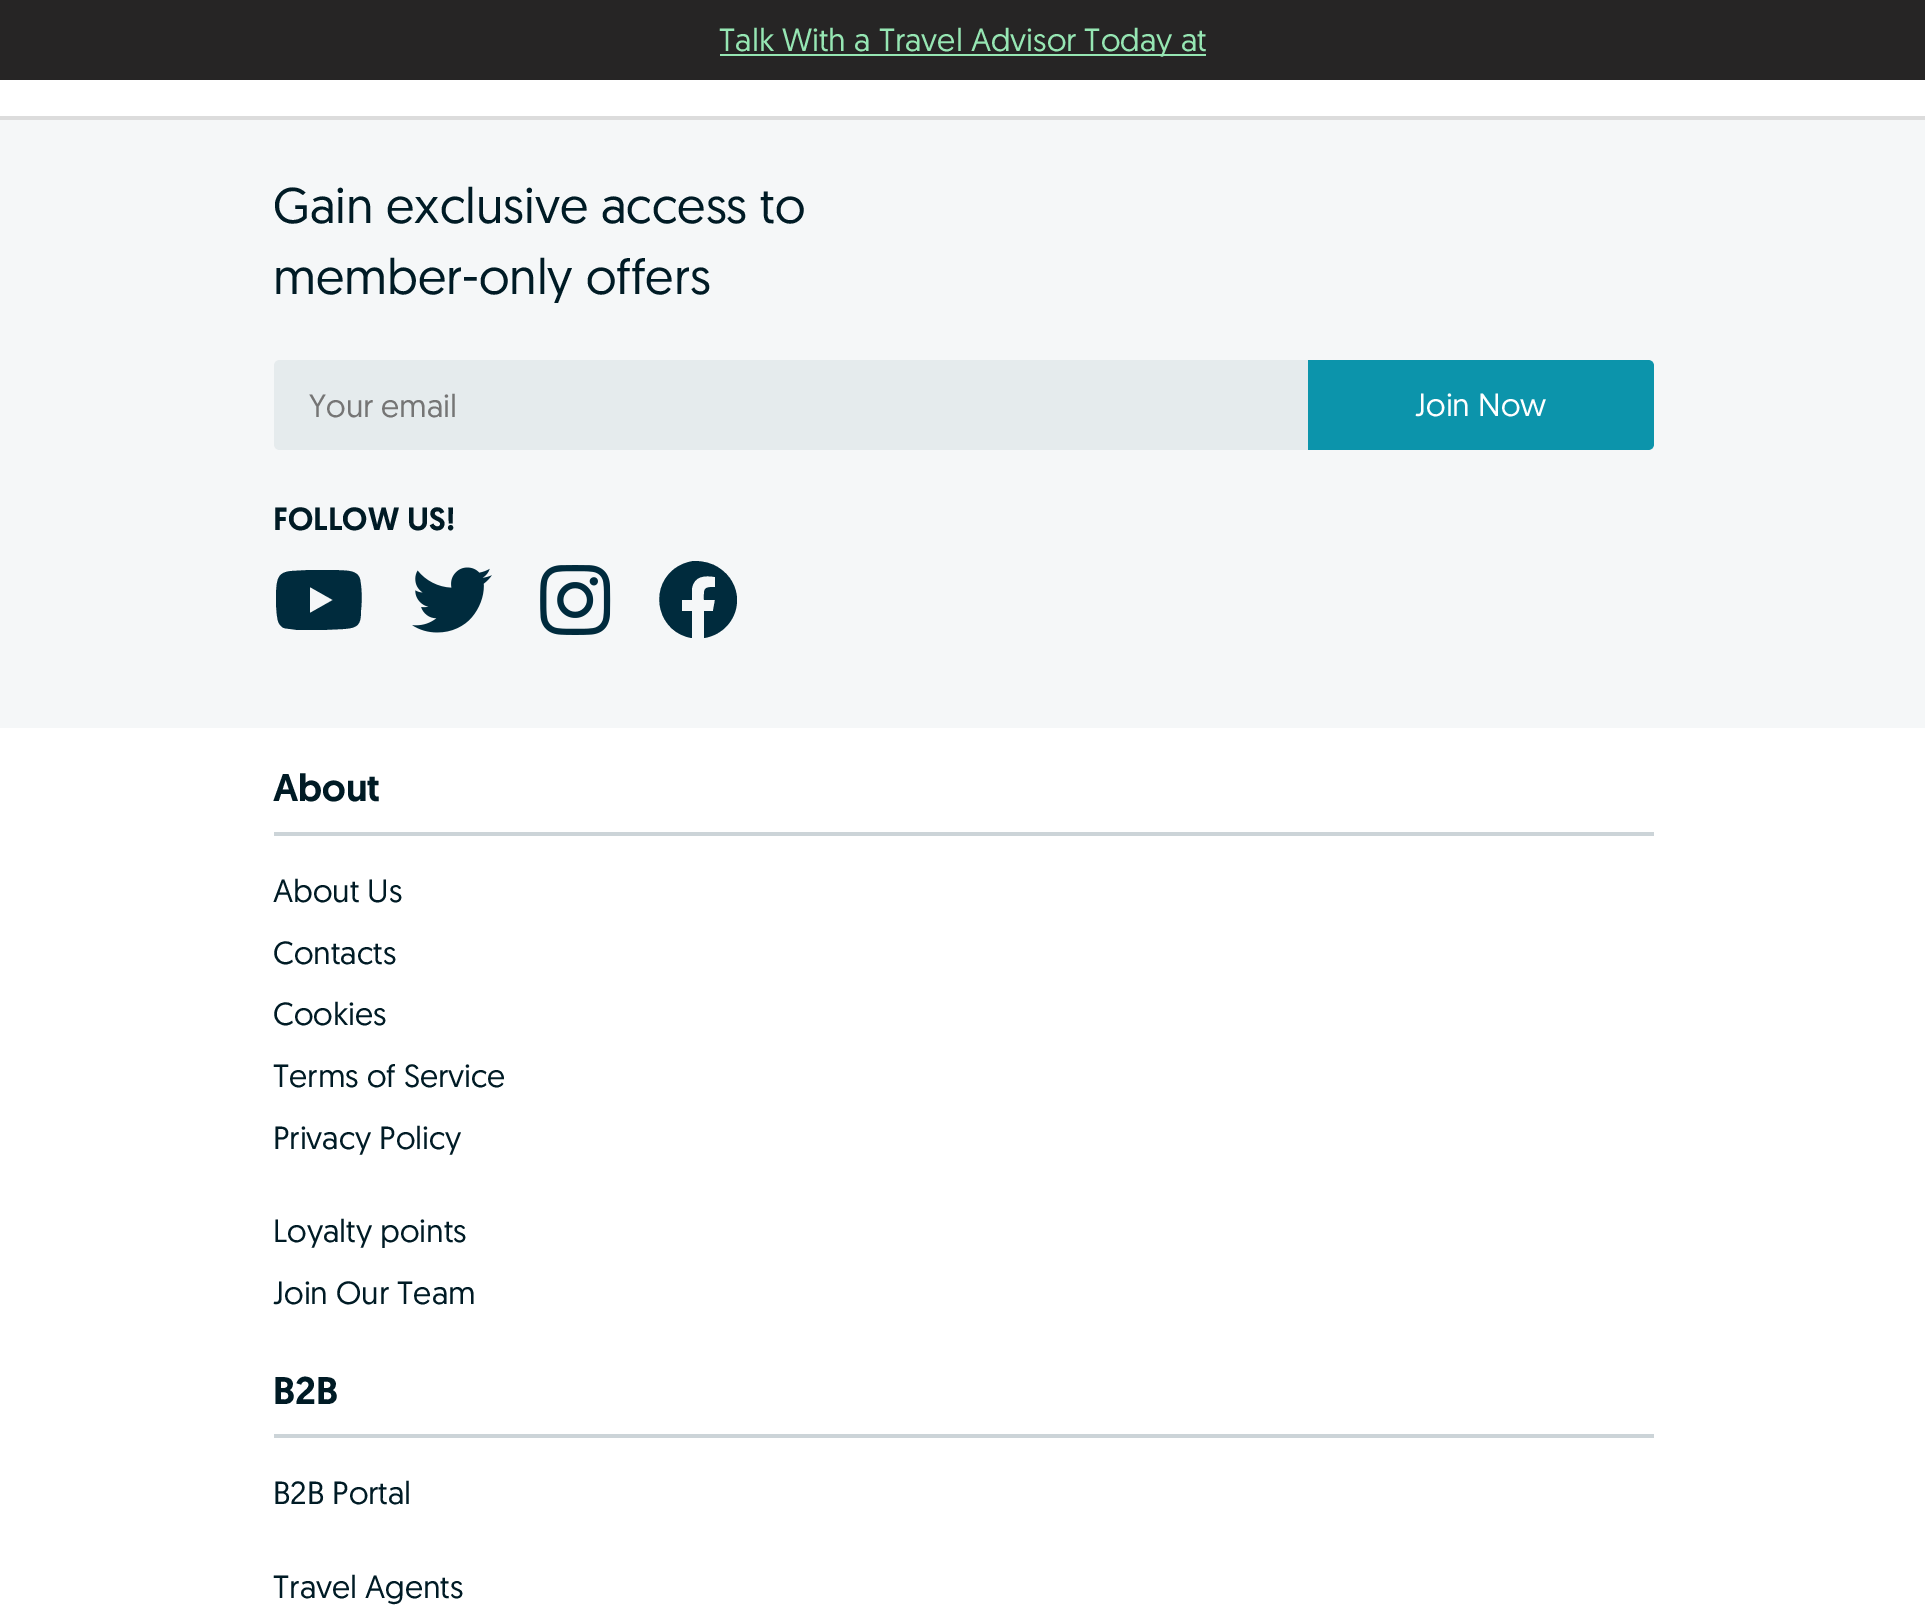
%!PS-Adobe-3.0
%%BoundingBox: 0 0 1925 1622
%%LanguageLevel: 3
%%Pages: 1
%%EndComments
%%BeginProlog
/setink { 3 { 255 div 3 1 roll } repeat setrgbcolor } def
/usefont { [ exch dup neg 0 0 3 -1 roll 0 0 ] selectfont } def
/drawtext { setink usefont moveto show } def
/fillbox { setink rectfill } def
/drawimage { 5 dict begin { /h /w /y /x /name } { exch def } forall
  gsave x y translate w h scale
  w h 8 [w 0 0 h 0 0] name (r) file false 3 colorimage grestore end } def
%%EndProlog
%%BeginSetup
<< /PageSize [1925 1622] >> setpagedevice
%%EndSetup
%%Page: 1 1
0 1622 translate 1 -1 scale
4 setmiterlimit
0 0 1925 1622 255 255 255 fillbox
0 0 1925 80 38 37 37 fillbox
720 54 486 2 150 230 179 fillbox
(Talk With a Travel Advisor Today at) 719 51 /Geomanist-Regular 32 150 230 179 drawtext
0 116 1925 4 220 220 220 fillbox
0 120 1925 608 245 247 248 fillbox
(Gain exclusive access to) 273 223 /Geomanist-Regular 50 0 27 37 drawtext
(member-only offers) 273 294 /Geomanist-Regular 50 0 27 37 drawtext
229 235 237 setink
280 360 moveto 1308 360 lineto 1308 450 lineto 280 450 lineto 276.5 450 274 447.5 274 444 curveto 274 366 lineto 274 362.5 276.5 360 280 360 curveto closepath fill
(Your email) 309 417 /Geomanist-Regular 32 117 117 117 drawtext
12 148 171 setink
1308 360 moveto 1648 360 lineto 1651.5 360 1654 362.5 1654 366 curveto 1654 444 lineto 1654 447.5 1651.5 450 1648 450 curveto 1308 450 lineto closepath fill
(Join Now) 1415 416 /Geomanist-Regular 32 255 255 255 drawtext
(FOLLOW US!) 273 530 /Geomanist-Medium 32 0 27 37 drawtext
0 43 61 setink
360 579 moveto 362 589 362 600 361 610 curveto 361 625 358 628 343 629 curveto 322 630 lineto 297 630 lineto 293 629 288 629 284 628 curveto 281 627 279 624 278 621 curveto 276 613 276 602 276 593 curveto 277 580 277 572 292 571 curveto 310 570 lineto 336 570 lineto 344 571 357 569 360 579 curveto closepath 310 613 moveto 333 600 lineto 310 587 lineto closepath fill
(assets/img1.rgb) 412 567 80 66 drawimage
(assets/img2.rgb) 540 565 71 70 drawimage
737 600 moveto 737 619 723 635 704 638 curveto 704 611 lineto 713 611 lineto 715 600 lineto 704 600 lineto 704 589 703 587 715 587 curveto 715 577 lineto 705 575 694 576 692 588 curveto 692 600 lineto 682 600 lineto 682 611 lineto 692 611 lineto 692 638 lineto 659 633 648 591 673 570 curveto 679 565 686 562 694 561 curveto 703 561 712 563 719 568 curveto 730 575 737 587 737 600 curveto closepath fill
274 832 1380 4 204 212 216 fillbox
(About) 273 801 /Geomanist-Medium 38.5 0 27 37 drawtext
(About Us) 273 902 /Geomanist-Regular 32 0 27 37 drawtext
(Contacts) 273 964 /Geomanist-Regular 32 0 27 37 drawtext
(Cookies) 273 1025 /Geomanist-Regular 32 0 27 37 drawtext
(Terms of Service) 273 1087 /Geomanist-Regular 32 0 27 37 drawtext
(Privacy Policy) 273 1149 /Geomanist-Regular 32 0 27 37 drawtext
(Loyalty points) 273 1242 /Geomanist-Regular 32 0 27 37 drawtext
(Join Our Team) 273 1304 /Geomanist-Regular 32 0 27 37 drawtext
274 1434 1380 4 204 212 216 fillbox
(B2B) 273 1404 /Geomanist-Medium 38.5 0 27 37 drawtext
(B2B Portal) 273 1504 /Geomanist-Regular 32 0 27 37 drawtext
(Travel Agents) 273 1598 /Geomanist-Regular 32 0 27 37 drawtext
showpage
%%EOF
